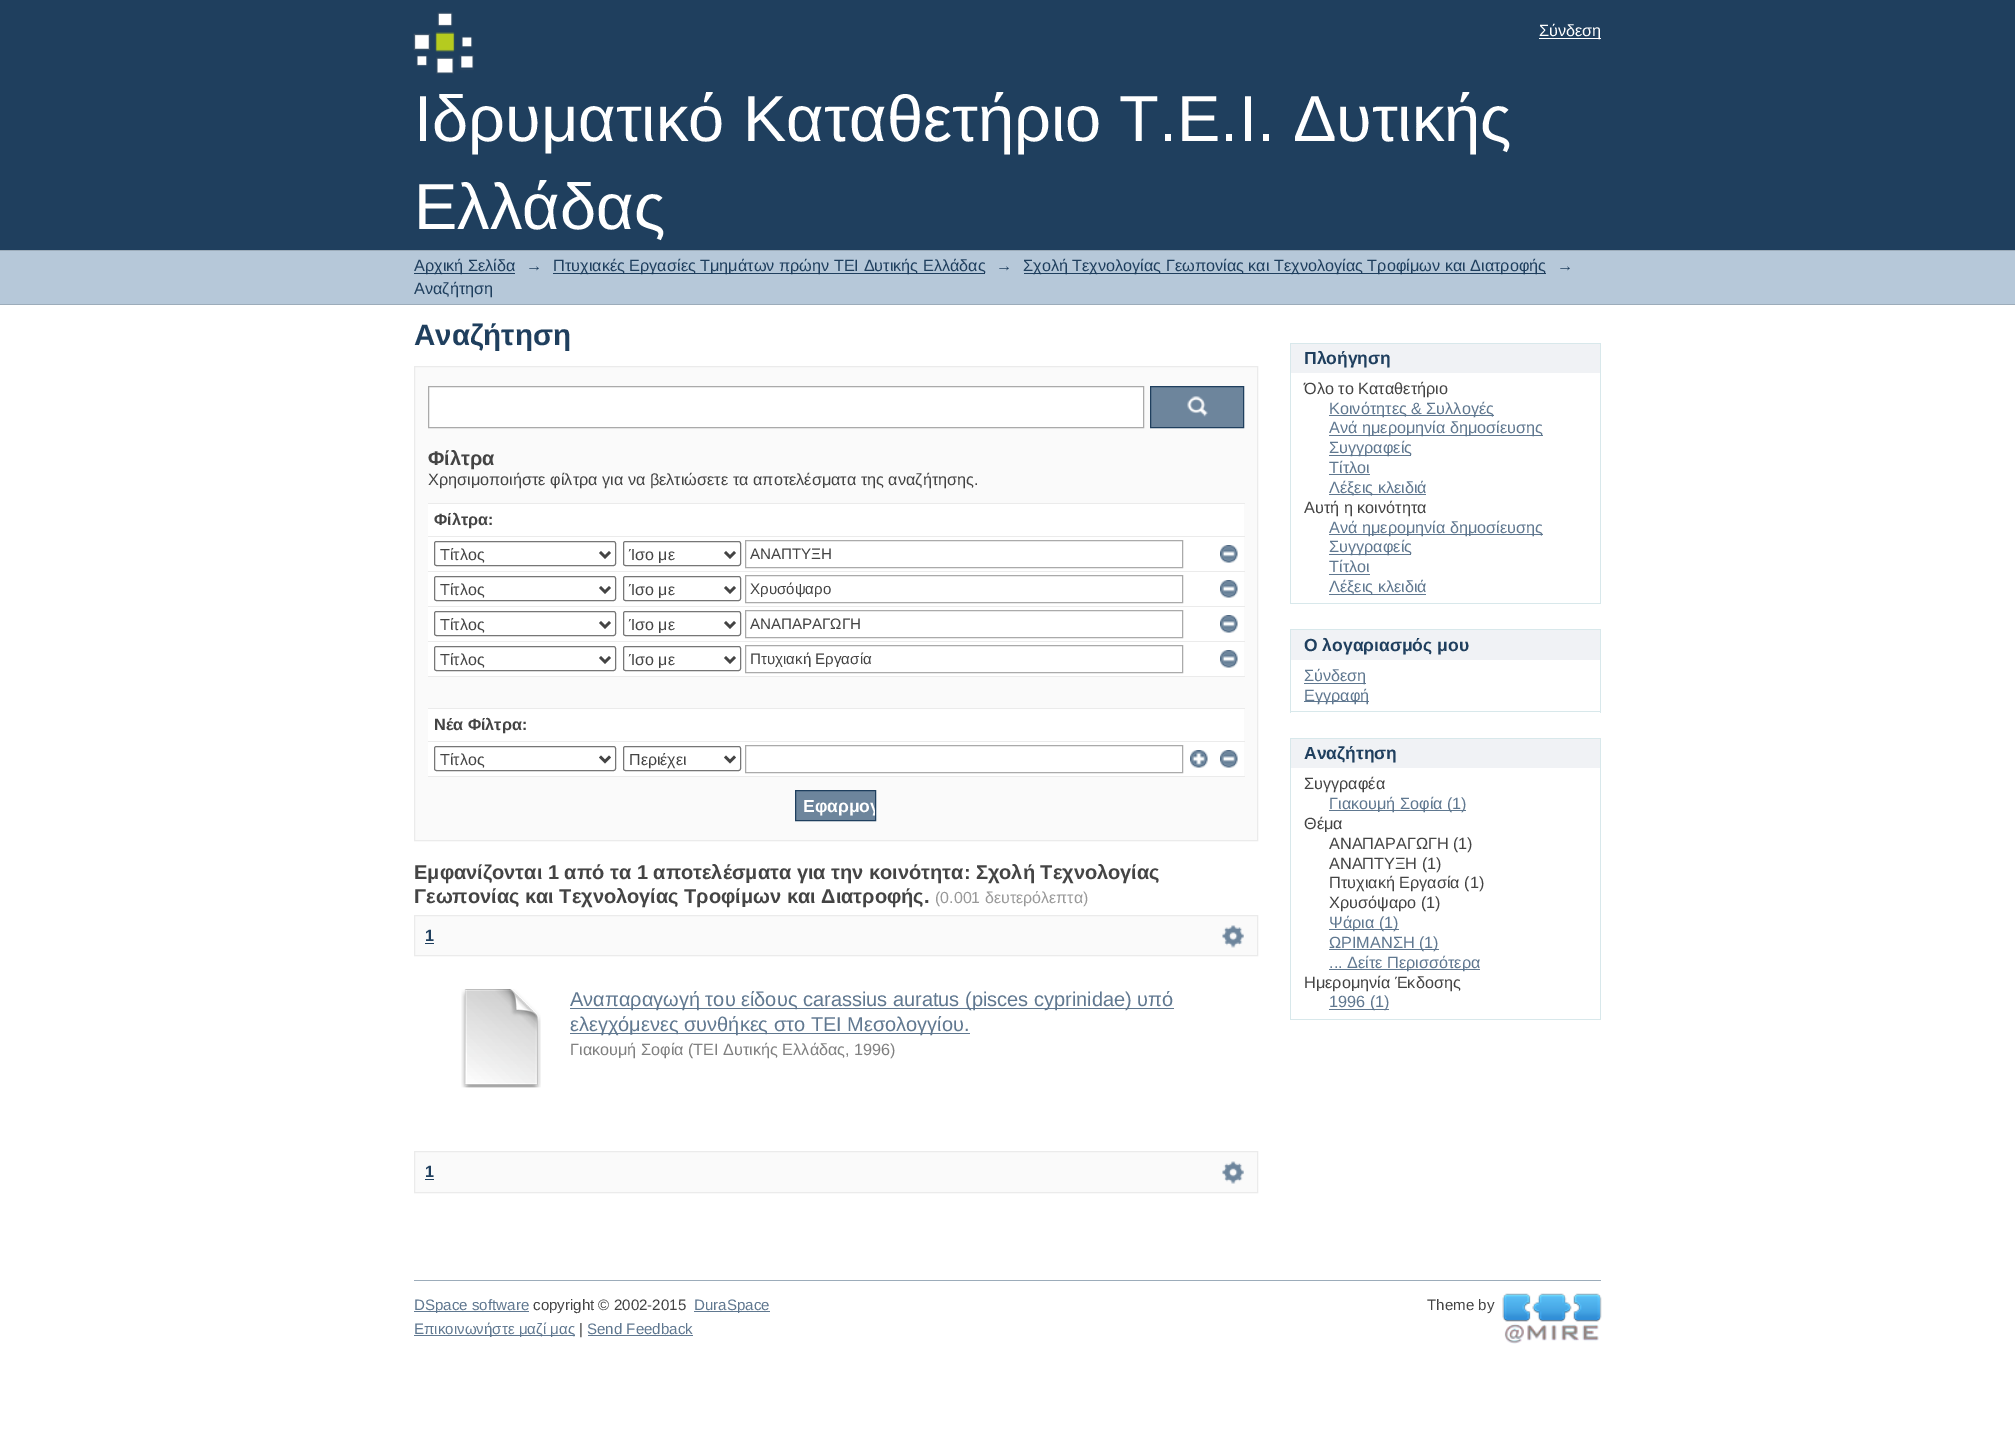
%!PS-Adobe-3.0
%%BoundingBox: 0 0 2015 1436
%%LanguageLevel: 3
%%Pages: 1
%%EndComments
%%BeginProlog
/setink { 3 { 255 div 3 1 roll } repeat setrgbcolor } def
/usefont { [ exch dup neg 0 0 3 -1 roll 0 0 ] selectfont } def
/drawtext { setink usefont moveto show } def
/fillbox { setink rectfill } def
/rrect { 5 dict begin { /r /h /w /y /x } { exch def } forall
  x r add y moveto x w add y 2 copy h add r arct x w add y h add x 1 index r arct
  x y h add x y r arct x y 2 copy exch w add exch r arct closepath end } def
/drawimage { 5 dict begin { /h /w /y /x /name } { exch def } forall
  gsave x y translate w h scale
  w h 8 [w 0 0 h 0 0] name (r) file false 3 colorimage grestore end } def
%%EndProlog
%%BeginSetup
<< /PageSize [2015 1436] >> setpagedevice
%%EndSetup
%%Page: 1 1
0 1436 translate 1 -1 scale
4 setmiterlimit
0 0 2015 1436 255 255 255 fillbox
0 0 2015 250 31 63 94 fillbox
1539 38 62 1 255 255 255 fillbox
(Σύνδεση) 1539 36 /LiberationSans-Regular 16.25 255 255 255 drawtext
(assets/img1.rgb) 413 12 61 62 drawimage
(Ιδρυματικό Καταθετήριο Τ.Ε.Ι. Δυτικής) 414 141 /LiberationSans-Regular 65 255 255 255 drawtext
(Ελλάδας) 414 229 /LiberationSans-Regular 65 255 255 255 drawtext
0 251 2015 53 182 200 217 fillbox
0 250 2015 1 156 172 186 fillbox
0 304 2015 1 156 172 186 fillbox
414 273 101 1 31 63 94 fillbox
(Αρχική Σελίδα) 414 271 /LiberationSans-Regular 16.25 31 63 94 drawtext
(→) 526 271 /LiberationSans-Regular 16.25 31 63 94 drawtext
553 273 432 1 31 63 94 fillbox
(Πτυχιακές Εργασίες Τμημάτων πρώην ΤΕΙ Δυτικής Ελλάδας) 553 271 /LiberationSans-Regular 16.25 31 63 94 drawtext
(→) 996 271 /LiberationSans-Regular 16.25 31 63 94 drawtext
1024 273 522 1 31 63 94 fillbox
(Σχολή Τεχνολογίας Γεωπονίας και Τεχνολογίας Τροφίμων και Διατροφής) 1023 271 /LiberationSans-Regular 16.25 31 63 94 drawtext
(→) 1557 271 /LiberationSans-Regular 16.25 31 63 94 drawtext
(Αναζήτηση) 414 294 /LiberationSans-Regular 16.25 31 63 94 drawtext
(Αναζήτηση) 414 345 /LiberationSans-Bold 29.5 31 63 94 drawtext
250 250 250 setink
414.5 366.5 moveto 1257.5 366.5 lineto 1257.5 840.5 lineto 414.5 840.5 lineto closepath gsave fill grestore
235 235 235 setink
stroke
255 255 255 setink
428.5 386.5 moveto 1143.5 386.5 lineto 1143.5 427.5 lineto 428.5 427.5 lineto closepath gsave fill grestore
170 170 170 setink
stroke
1151 387 92 40 109 133 156 fillbox
(assets/img2.rgb) 1187 396 21 21 drawimage
31 63 94 setink
1150.5 386.5 93 41 rectstroke
(Φίλτρα) 428 465 /LiberationSans-Bold 20 68 68 68 drawtext
(Χρησιμοποιήστε φίλτρα για να βελτιώσετε τα αποτελέσματα της αναζήτησης.) 428 485 /LiberationSans-Regular 16.25 68 68 68 drawtext
428 504 816 272 255 255 255 fillbox
428 503 817 1 235 235 235 fillbox
(Φίλτρα:) 434 525 /LiberationSans-Bold 16.25 68 68 68 drawtext
428 536 817 1 235 235 235 fillbox
118 118 118 setink
434.5 541.5 181 24 2 rrect stroke
68 68 68 setink
2.5 setlinewidth
600 552 moveto 605 557 lineto 610 552 lineto stroke
(Τίτλος) 440 560 /LiberationSans-Regular 16 68 68 68 drawtext
118 118 118 setink
1 setlinewidth
623.5 541.5 117 24 2 rrect stroke
68 68 68 setink
2.5 setlinewidth
725 552 moveto 730 557 lineto 735 552 lineto stroke
(Ίσο με) 629 560 /LiberationSans-Regular 16 68 68 68 drawtext
170 170 170 setink
1 setlinewidth
745.5 540.5 437 27 rectstroke
(ΑΝΑΠΤΥΞΗ) 750 559 /LiberationSans-Regular 15.1 68 68 68 drawtext
(assets/img3.rgb) 1220 545 18 18 drawimage
428 571 817 1 235 235 235 fillbox
118 118 118 setink
434.5 576.5 181 24 2 rrect stroke
68 68 68 setink
2.5 setlinewidth
600 587 moveto 605 592 lineto 610 587 lineto stroke
(Τίτλος) 440 595 /LiberationSans-Regular 16 68 68 68 drawtext
118 118 118 setink
1 setlinewidth
623.5 576.5 117 24 2 rrect stroke
68 68 68 setink
2.5 setlinewidth
725 587 moveto 730 592 lineto 735 587 lineto stroke
(Ίσο με) 629 595 /LiberationSans-Regular 16 68 68 68 drawtext
170 170 170 setink
1 setlinewidth
745.5 575.5 437 27 rectstroke
(Χρυσόψαρο) 750 594 /LiberationSans-Regular 15.1 68 68 68 drawtext
(assets/img4.rgb) 1220 580 18 18 drawimage
428 606 817 1 235 235 235 fillbox
118 118 118 setink
434.5 611.5 181 24 2 rrect stroke
68 68 68 setink
2.5 setlinewidth
600 622 moveto 605 627 lineto 610 622 lineto stroke
(Τίτλος) 440 630 /LiberationSans-Regular 16 68 68 68 drawtext
118 118 118 setink
1 setlinewidth
623.5 611.5 117 24 2 rrect stroke
68 68 68 setink
2.5 setlinewidth
725 622 moveto 730 627 lineto 735 622 lineto stroke
(Ίσο με) 629 630 /LiberationSans-Regular 16 68 68 68 drawtext
170 170 170 setink
1 setlinewidth
745.5 610.5 437 27 rectstroke
(ΑΝΑΠΑΡΑΓΩΓΗ) 750 629 /LiberationSans-Regular 15.1 68 68 68 drawtext
(assets/img3.rgb) 1220 615 18 18 drawimage
428 641 817 1 235 235 235 fillbox
118 118 118 setink
434.5 646.5 181 24 2 rrect stroke
68 68 68 setink
2.5 setlinewidth
600 657 moveto 605 662 lineto 610 657 lineto stroke
(Τίτλος) 440 665 /LiberationSans-Regular 16 68 68 68 drawtext
118 118 118 setink
1 setlinewidth
623.5 646.5 117 24 2 rrect stroke
68 68 68 setink
2.5 setlinewidth
725 657 moveto 730 662 lineto 735 657 lineto stroke
(Ίσο με) 629 665 /LiberationSans-Regular 16 68 68 68 drawtext
170 170 170 setink
1 setlinewidth
745.5 645.5 437 27 rectstroke
(Πτυχιακή Εργασία) 750 664 /LiberationSans-Regular 15.1 68 68 68 drawtext
(assets/img3.rgb) 1220 650 18 18 drawimage
428 677 816 31 250 250 250 fillbox
428 676 817 1 235 235 235 fillbox
428 708 817 1 235 235 235 fillbox
(Νέα Φίλτρα:) 434 730 /LiberationSans-Bold 16.25 68 68 68 drawtext
428 741 817 1 235 235 235 fillbox
118 118 118 setink
434.5 746.5 181 24 2 rrect stroke
68 68 68 setink
2.5 setlinewidth
600 756.5 moveto 605 761.5 lineto 610 756.5 lineto stroke
(Τίτλος) 440 765 /LiberationSans-Regular 16 68 68 68 drawtext
118 118 118 setink
1 setlinewidth
623.5 746.5 117 24 2 rrect stroke
68 68 68 setink
2.5 setlinewidth
725 756.5 moveto 730 761.5 lineto 735 756.5 lineto stroke
(Περιέχει) 629 765 /LiberationSans-Regular 16 68 68 68 drawtext
170 170 170 setink
1 setlinewidth
745.5 745.5 437 27 rectstroke
(assets/img5.rgb) 1190 750 18 18 drawimage
(assets/img3.rgb) 1220 750 18 18 drawimage
428 776 817 1 235 235 235 fillbox
109 133 156 setink
795.5 790.5 moveto 875.5 790.5 lineto 875.5 820.5 lineto 795.5 820.5 lineto closepath gsave fill grestore
31 63 94 setink
stroke
gsave
796 791 79 29 rectclip
(Εφαρμογ) 803 812 /LiberationSans-Bold 17.5 255 255 255 drawtext
grestore
(Εμφανίζονται 1 από τα 1 αποτελέσματα για την κοινότητα: Σχολή Τεχνολογίας) 414 879 /LiberationSans-Bold 20 68 68 68 drawtext
(Γεωπονίας και Τεχνολογίας Τροφίμων και Διατροφής.) 414 903 /LiberationSans-Bold 20 68 68 68 drawtext
(\(0.001 δευτερόλεπτα\)) 935 903 /LiberationSans-Regular 16 153 153 153 drawtext
250 250 250 setink
414.5 915.5 moveto 1257.5 915.5 lineto 1257.5 955.5 lineto 414.5 955.5 lineto closepath gsave fill grestore
235 235 235 setink
stroke
(1) 425 941 /LiberationSans-Bold 16.25 31 63 94 drawtext
425 943 9 1 31 63 94 fillbox
(assets/img6.rgb) 1222 925 22 23 drawimage
(assets/img7.rgb) 461 989 80 99 drawimage
570 1008 604 1 96 120 144 fillbox
(Αναπαραγωγή του είδους carassius auratus \(pisces cyprinidae\) υπό) 570 1006 /LiberationSans-Regular 20 96 120 144 drawtext
570 1033 400 1 96 120 144 fillbox
(ελεγχόμενες συνθήκες στο ΤΕΙ Μεσολογγίου.) 570 1031 /LiberationSans-Regular 20 96 120 144 drawtext
(Γιακουμή Σοφία \(ΤΕΙ Δυτικής Ελλάδας, 1996\)) 570 1055 /LiberationSans-Regular 16.25 128 128 128 drawtext
250 250 250 setink
414.5 1151.5 moveto 1257.5 1151.5 lineto 1257.5 1192.5 lineto 414.5 1192.5 lineto closepath gsave fill grestore
235 235 235 setink
stroke
(1) 425 1177 /LiberationSans-Bold 16.25 31 63 94 drawtext
425 1179 9 1 31 63 94 fillbox
(assets/img8.rgb) 1222 1161 22 23 drawimage
1291 344 309 29 240 242 245 fillbox
1290 343 311 1 216 232 235 fillbox
1600 343 1 261 216 232 235 fillbox
1290 343 1 30 216 232 235 fillbox
(Πλοήγηση) 1304 364 /LiberationSans-Bold 17.5 31 63 94 drawtext
1290 603 311 1 216 232 235 fillbox
1290 373 1 231 216 232 235 fillbox
(Όλο το Καταθετήριο) 1304 394 /LiberationSans-Regular 16.25 68 68 68 drawtext
1329 415 165 1 96 120 144 fillbox
(Κοινότητες & Συλλογές) 1329 414 /LiberationSans-Regular 16.25 96 120 144 drawtext
1329 435 214 1 96 120 144 fillbox
(Ανά ημερομηνία δημοσίευσης) 1329 433 /LiberationSans-Regular 16.25 96 120 144 drawtext
1329 455 82 1 96 120 144 fillbox
(Συγγραφείς) 1329 453 /LiberationSans-Regular 16.25 96 120 144 drawtext
(Τίτλοι) 1329 473 /LiberationSans-Regular 16.25 96 120 144 drawtext
1329 474 41 1 96 120 144 fillbox
1329 494 97 1 96 120 144 fillbox
(Λέξεις κλειδιά) 1329 493 /LiberationSans-Regular 16.25 96 120 144 drawtext
(Αυτή η κοινότητα) 1304 513 /LiberationSans-Regular 16.25 68 68 68 drawtext
1329 534 214 1 96 120 144 fillbox
(Ανά ημερομηνία δημοσίευσης) 1329 533 /LiberationSans-Regular 16.25 96 120 144 drawtext
1329 554 82 1 96 120 144 fillbox
(Συγγραφείς) 1329 552 /LiberationSans-Regular 16.25 96 120 144 drawtext
(Τίτλοι) 1329 572 /LiberationSans-Regular 16.25 96 120 144 drawtext
1329 574 41 1 96 120 144 fillbox
1329 594 97 1 96 120 144 fillbox
(Λέξεις κλειδιά) 1329 592 /LiberationSans-Regular 16.25 96 120 144 drawtext
1291 630 309 30 240 242 245 fillbox
1290 629 311 1 216 232 235 fillbox
1600 629 1 84 216 232 235 fillbox
1290 629 1 31 216 232 235 fillbox
(Ο λογαριασμός μου) 1304 651 /LiberationSans-Bold 17.5 31 63 94 drawtext
1290 711 311 1 216 232 235 fillbox
1290 660 1 53 216 232 235 fillbox
1304 683 62 1 96 120 144 fillbox
(Σύνδεση) 1304 681 /LiberationSans-Regular 16.25 96 120 144 drawtext
1304 701 65 1 96 120 144 fillbox
(Εγγραφή) 1304 701 /LiberationSans-Regular 16.25 96 120 144 drawtext
1291 739 309 29 240 242 245 fillbox
1290 738 311 1 216 232 235 fillbox
1600 738 1 282 216 232 235 fillbox
1290 738 1 30 216 232 235 fillbox
(Αναζήτηση) 1304 759 /LiberationSans-Bold 17.5 31 63 94 drawtext
1290 1019 311 1 216 232 235 fillbox
1290 768 1 252 216 232 235 fillbox
(Συγγραφέα) 1304 789 /LiberationSans-Regular 16.25 68 68 68 drawtext
1329 810 137 1 96 120 144 fillbox
(Γιακουμή Σοφία \(1\)) 1329 809 /LiberationSans-Regular 16.25 96 120 144 drawtext
(Θέμα) 1304 829 /LiberationSans-Regular 16.25 68 68 68 drawtext
(ΑΝΑΠΑΡΑΓΩΓΗ \(1\)) 1329 849 /LiberationSans-Regular 16.25 68 68 68 drawtext
(ΑΝΑΠΤΥΞΗ \(1\)) 1329 869 /LiberationSans-Regular 16.25 68 68 68 drawtext
(Πτυχιακή Εργασία \(1\)) 1329 888 /LiberationSans-Regular 16.25 68 68 68 drawtext
(Χρυσόψαρο \(1\)) 1329 908 /LiberationSans-Regular 16.25 68 68 68 drawtext
1329 929 70 1 96 120 144 fillbox
(Ψάρια \(1\)) 1329 928 /LiberationSans-Regular 16.25 96 120 144 drawtext
1329 949 110 1 96 120 144 fillbox
(ΩΡΙΜΑΝΣΗ \(1\)) 1329 948 /LiberationSans-Regular 16.25 96 120 144 drawtext
1329 969 151 1 96 120 144 fillbox
(... Δείτε Περισσότερα) 1329 968 /LiberationSans-Regular 16.25 96 120 144 drawtext
(Ημερομηνία Έκδοσης) 1304 988 /LiberationSans-Regular 16.25 68 68 68 drawtext
1329 1009 60 1 96 120 144 fillbox
(1996 \(1\)) 1329 1007 /LiberationSans-Regular 16.25 96 120 144 drawtext
414 1280 1187 1 156 172 186 fillbox
414 1311 115 1 96 120 144 fillbox
(DSpace software) 414 1310 /LiberationSans-Regular 15.1 96 120 144 drawtext
(copyright © 2002-2015) 533 1310 /LiberationSans-Regular 15.1 68 68 68 drawtext
694 1311 76 1 96 120 144 fillbox
(DuraSpace) 694 1310 /LiberationSans-Regular 15.1 96 120 144 drawtext
(Theme by) 1427 1310 /LiberationSans-Regular 15.1 68 68 68 drawtext
(assets/img9.rgb) 1502 1293 100 51 drawimage
414 1335 161 1 96 120 144 fillbox
(Επικοινωνήστε μαζί μας) 414 1334 /LiberationSans-Regular 15.1 96 120 144 drawtext
(|) 579 1334 /LiberationSans-Regular 15.1 68 68 68 drawtext
(Send Feedback) 587 1334 /LiberationSans-Regular 15.1 96 120 144 drawtext
588 1335 105 1 96 120 144 fillbox
showpage
%%EOF
